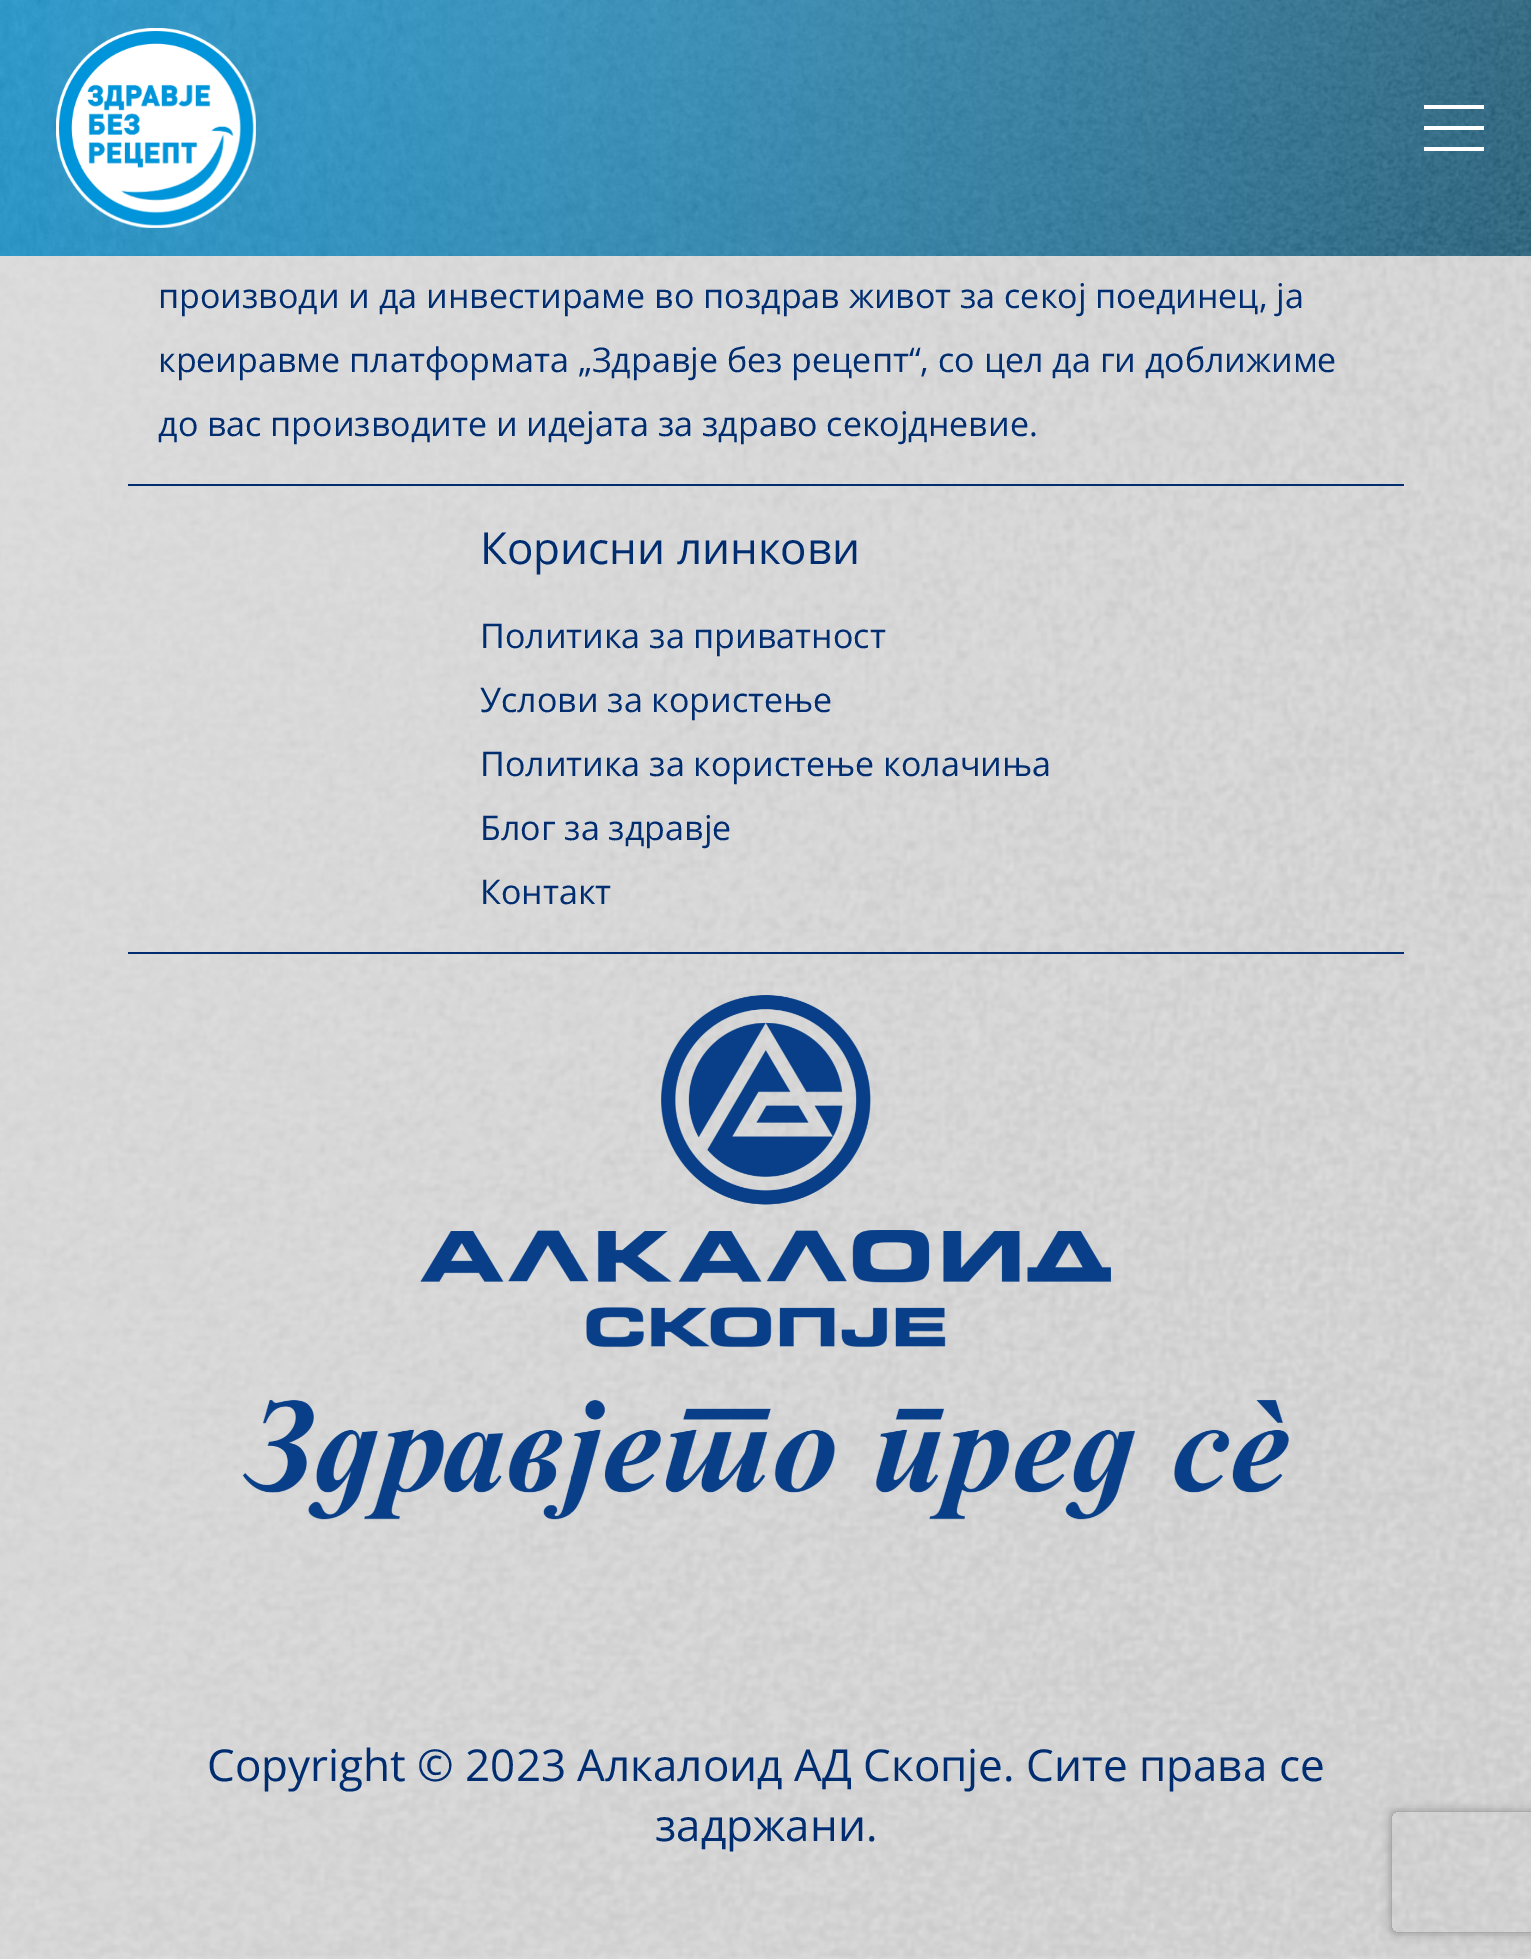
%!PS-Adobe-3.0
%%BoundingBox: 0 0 1531 1959
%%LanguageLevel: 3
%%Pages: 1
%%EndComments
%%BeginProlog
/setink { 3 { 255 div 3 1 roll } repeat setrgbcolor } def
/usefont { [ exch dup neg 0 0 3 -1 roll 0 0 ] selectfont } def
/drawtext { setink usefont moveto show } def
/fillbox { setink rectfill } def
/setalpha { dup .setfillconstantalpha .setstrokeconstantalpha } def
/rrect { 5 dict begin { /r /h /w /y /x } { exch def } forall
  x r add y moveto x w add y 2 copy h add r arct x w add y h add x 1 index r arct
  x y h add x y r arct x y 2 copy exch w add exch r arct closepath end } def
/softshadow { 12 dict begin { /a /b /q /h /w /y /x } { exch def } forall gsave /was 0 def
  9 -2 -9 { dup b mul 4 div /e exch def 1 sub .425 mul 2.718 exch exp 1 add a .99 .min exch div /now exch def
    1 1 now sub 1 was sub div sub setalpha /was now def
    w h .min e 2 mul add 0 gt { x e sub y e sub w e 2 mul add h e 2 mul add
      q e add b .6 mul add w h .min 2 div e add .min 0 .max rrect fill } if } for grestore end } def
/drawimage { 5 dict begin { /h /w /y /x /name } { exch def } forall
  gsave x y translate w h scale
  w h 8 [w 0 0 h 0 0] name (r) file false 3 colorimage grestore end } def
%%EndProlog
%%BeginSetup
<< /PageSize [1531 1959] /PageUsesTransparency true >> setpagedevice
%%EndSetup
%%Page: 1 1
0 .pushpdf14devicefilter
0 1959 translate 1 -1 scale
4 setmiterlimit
0 0 1531 1959 255 255 255 fillbox
(assets/img1.rgb) 0 0 1531 256 drawimage
(assets/img2.rgb) 56 28 200 200 drawimage
1424 105 60 4 255 255 255 fillbox
1424 126 60 4 255 255 255 fillbox
1424 147 60 4 255 255 255 fillbox
(assets/img3.rgb) 0 256 1531 1703 drawimage
(производи и да инвестираме во поздрав живот за секој поединец, ја) 158 308 /OpenSans-Regular 34 0 45 112 drawtext
(креиравме платформата „Здравје без рецепт“, со цел да ги доближиме) 158 372 /OpenSans-Regular 34 0 45 112 drawtext
(до вас производите и идејата за здраво секојдневие.) 158 436 /OpenSans-Regular 34 0 45 112 drawtext
128 484 1276 2 0 45 112 fillbox
128 952 1276 2 0 45 112 fillbox
(Корисни линкови) 480 564 /OpenSans-Regular 44 0 45 112 drawtext
(Политика за приватност) 480 648 /OpenSans-Regular 34 0 45 112 drawtext
(Услови за користење) 480 712 /OpenSans-Regular 34 0 45 112 drawtext
(Политика за користење колачиња) 480 776 /OpenSans-Regular 34 0 45 112 drawtext
(Блог за здравје) 480 840 /OpenSans-Regular 34 0 45 112 drawtext
(Контакт) 480 904 /OpenSans-Regular 34 0 45 112 drawtext
(assets/img4.rgb) 242 995 1047 525 drawimage
(Copyright © 2023 Алкалоид АД Скопје. Сите права се) 207 1781 /OpenSans-Regular 44 0 45 112 drawtext
(задржани.) 655 1841 /OpenSans-Regular 44 0 45 112 drawtext
gsave
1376 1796 moveto 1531 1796 lineto 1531 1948 lineto 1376 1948 lineto closepath 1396 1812 moveto 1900 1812 lineto 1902 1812 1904 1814 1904 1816 curveto 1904 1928 lineto 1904 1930 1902 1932 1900 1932 curveto 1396 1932 lineto 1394 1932 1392 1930 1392 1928 curveto 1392 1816 lineto 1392 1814 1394 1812 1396 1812 curveto closepath eoclip newpath
128 128 128 setink
1392 1812 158 120 4 5 1 softshadow
grestore
.poppdf14devicefilter showpage
%%EOF
